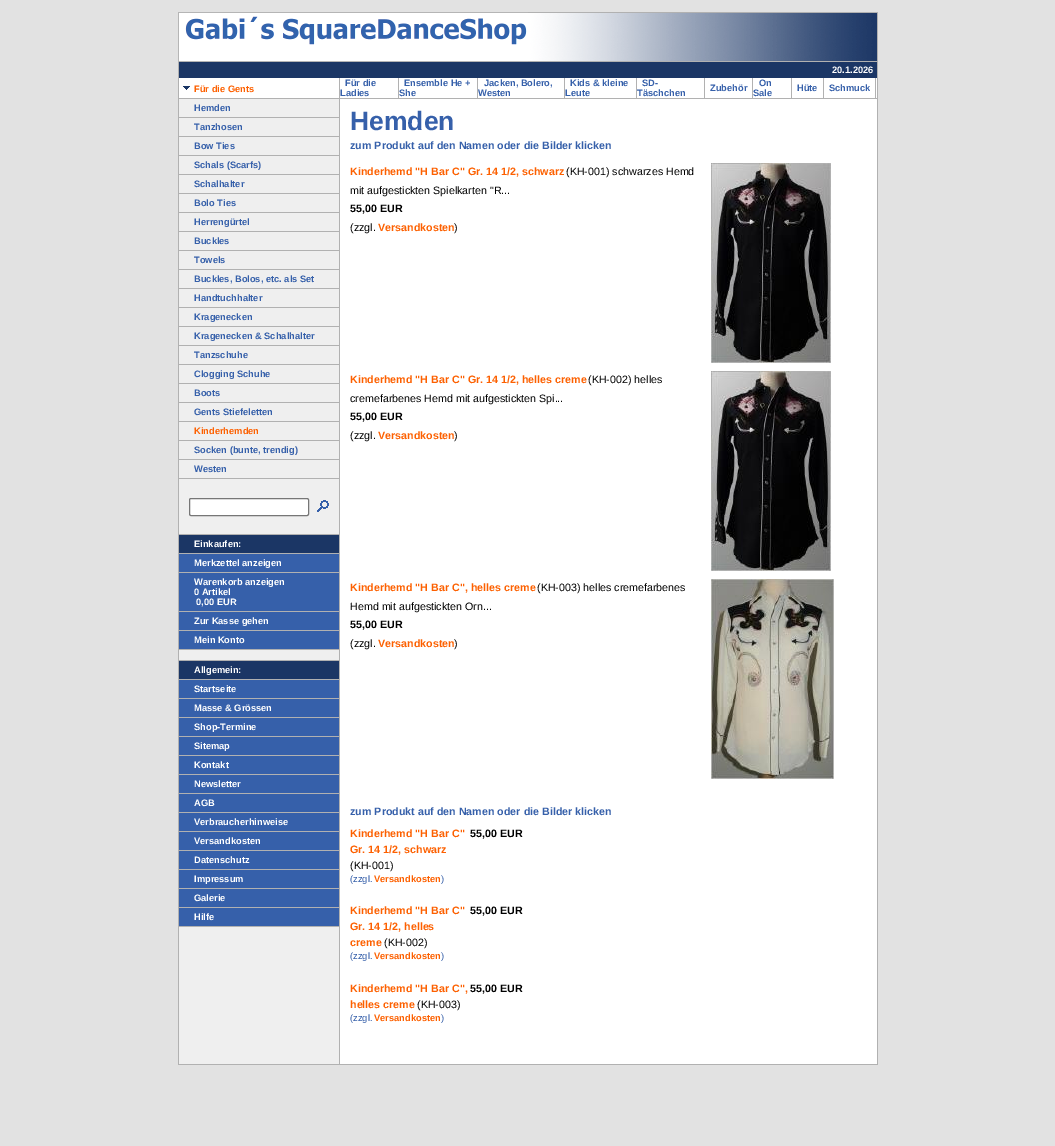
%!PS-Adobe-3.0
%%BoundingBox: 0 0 1055 1146
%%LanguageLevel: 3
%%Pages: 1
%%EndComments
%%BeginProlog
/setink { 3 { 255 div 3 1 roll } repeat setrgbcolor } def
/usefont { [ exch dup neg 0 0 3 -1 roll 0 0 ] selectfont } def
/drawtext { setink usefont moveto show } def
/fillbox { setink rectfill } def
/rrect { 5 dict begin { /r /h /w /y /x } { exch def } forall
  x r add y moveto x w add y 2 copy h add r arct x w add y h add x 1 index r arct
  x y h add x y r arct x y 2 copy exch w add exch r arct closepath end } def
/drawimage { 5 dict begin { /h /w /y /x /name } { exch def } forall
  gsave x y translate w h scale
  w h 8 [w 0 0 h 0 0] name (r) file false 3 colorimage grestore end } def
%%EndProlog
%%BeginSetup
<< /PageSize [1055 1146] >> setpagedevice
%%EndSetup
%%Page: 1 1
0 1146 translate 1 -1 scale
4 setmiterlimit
0 0 1055 1146 226 226 226 fillbox
179 99 160 965 239 239 239 fillbox
(assets/img1.rgb) 178 12 350 50 drawimage
(assets/img2.rgb) 528 12 350 50 drawimage
178 62 1 36 177 177 177 fillbox
179 62 698 16 27 54 101 fillbox
(20.1.2026) 832 73 /LiberationSans-Bold 9.3 255 255 255 drawtext
877 62 1 36 177 177 177 fillbox
179 78 160 20 255 255 255 fillbox
(assets/img3.rgb) 183 86 7 4 drawimage
(Für die Gents) 194 92 /LiberationSans-Bold 9.3 253 96 0 drawtext
339 78 1 20 177 177 177 fillbox
340 78 537 20 255 255 255 fillbox
(Für die) 345 86 /LiberationSans-Bold 9.3 54 96 170 drawtext
(Ladies) 340 96 /LiberationSans-Bold 9.3 54 96 170 drawtext
398 78 1 20 177 177 177 fillbox
(Ensemble He +) 404 86 /LiberationSans-Bold 9.3 54 96 170 drawtext
(She) 399 96 /LiberationSans-Bold 9.3 54 96 170 drawtext
477 78 1 20 177 177 177 fillbox
(Jacken, Bolero,) 484 86 /LiberationSans-Bold 9.3 54 96 170 drawtext
(Westen) 478 96 /LiberationSans-Bold 9.3 54 96 170 drawtext
564 78 1 20 177 177 177 fillbox
(Kids & kleine) 570 86 /LiberationSans-Bold 9.3 54 96 170 drawtext
(Leute) 565 96 /LiberationSans-Bold 9.3 54 96 170 drawtext
636 78 1 20 177 177 177 fillbox
704 78 1 20 177 177 177 fillbox
752 78 1 20 177 177 177 fillbox
791 78 1 20 177 177 177 fillbox
823 78 1 20 177 177 177 fillbox
875 78 1 20 177 177 177 fillbox
(SD-) 642 86 /LiberationSans-Bold 9.3 54 96 170 drawtext
(Täschchen) 637 96 /LiberationSans-Bold 9.3 54 96 170 drawtext
(Zubehör) 710 91 /LiberationSans-Bold 9.3 54 96 170 drawtext
(On) 759 86 /LiberationSans-Bold 9.3 54 96 170 drawtext
(Sale) 753 96 /LiberationSans-Bold 9.3 54 96 170 drawtext
(Hüte) 797 91 /LiberationSans-Bold 9.3 54 96 170 drawtext
(Schmuck) 829 91 /LiberationSans-Bold 9.3 54 96 170 drawtext
178 98 700 1 177 177 177 fillbox
178 99 1 965 177 177 177 fillbox
(Hemden) 194 111 /LiberationSans-Bold 9.3 54 96 170 drawtext
179 117 160 1 177 177 177 fillbox
(Tanzhosen) 194 130 /LiberationSans-Bold 9.3 54 96 170 drawtext
179 136 160 1 177 177 177 fillbox
(Bow Ties) 194 149 /LiberationSans-Bold 9.3 54 96 170 drawtext
179 155 160 1 177 177 177 fillbox
(Schals \(Scarfs\)) 194 168 /LiberationSans-Bold 9.3 54 96 170 drawtext
179 174 160 1 177 177 177 fillbox
(Schalhalter) 194 187 /LiberationSans-Bold 9.3 54 96 170 drawtext
179 193 160 1 177 177 177 fillbox
(Bolo Ties) 194 206 /LiberationSans-Bold 9.3 54 96 170 drawtext
179 212 160 1 177 177 177 fillbox
(Herrengürtel) 194 225 /LiberationSans-Bold 9.3 54 96 170 drawtext
179 231 160 1 177 177 177 fillbox
(Buckles) 194 244 /LiberationSans-Bold 9.3 54 96 170 drawtext
179 250 160 1 177 177 177 fillbox
(Towels) 194 263 /LiberationSans-Bold 9.3 54 96 170 drawtext
179 269 160 1 177 177 177 fillbox
(Buckles, Bolos, etc. als Set) 194 282 /LiberationSans-Bold 9.3 54 96 170 drawtext
179 288 160 1 177 177 177 fillbox
(Handtuchhalter) 194 301 /LiberationSans-Bold 9.3 54 96 170 drawtext
179 307 160 1 177 177 177 fillbox
(Kragenecken) 194 320 /LiberationSans-Bold 9.3 54 96 170 drawtext
179 326 160 1 177 177 177 fillbox
(Kragenecken & Schalhalter) 194 339 /LiberationSans-Bold 9.3 54 96 170 drawtext
179 345 160 1 177 177 177 fillbox
(Tanzschuhe) 194 358 /LiberationSans-Bold 9.3 54 96 170 drawtext
179 364 160 1 177 177 177 fillbox
(Clogging Schuhe) 194 377 /LiberationSans-Bold 9.3 54 96 170 drawtext
179 383 160 1 177 177 177 fillbox
(Boots) 194 396 /LiberationSans-Bold 9.3 54 96 170 drawtext
179 402 160 1 177 177 177 fillbox
(Gents Stiefeletten) 194 415 /LiberationSans-Bold 9.3 54 96 170 drawtext
179 421 160 1 177 177 177 fillbox
(Kinderhemden) 194 434 /LiberationSans-Bold 9.3 253 96 0 drawtext
179 440 160 1 177 177 177 fillbox
(Socken \(bunte, trendig\)) 194 453 /LiberationSans-Bold 9.3 54 96 170 drawtext
179 459 160 1 177 177 177 fillbox
(Westen) 194 472 /LiberationSans-Bold 9.3 54 96 170 drawtext
179 478 160 1 177 177 177 fillbox
255 255 255 setink
189.5 498.5 119 17 1.5 rrect gsave fill grestore
118 118 118 setink
stroke
(assets/img4.rgb) 317 500 12 12 drawimage
179 534 160 1 177 177 177 fillbox
179 535 160 18 27 54 101 fillbox
(Einkaufen:) 194 547 /LiberationSans-Bold 9.3 255 255 255 drawtext
179 553 160 1 177 177 177 fillbox
179 554 160 18 54 96 170 fillbox
(Merkzettel anzeigen) 194 566 /LiberationSans-Bold 9.3 255 255 255 drawtext
179 572 160 1 177 177 177 fillbox
179 573 160 38 54 96 170 fillbox
(Warenkorb anzeigen) 194 585 /LiberationSans-Bold 9.3 255 255 255 drawtext
(0 Artikel) 194 595 /LiberationSans-Bold 9.3 255 255 255 drawtext
(0,00 EUR) 196 605 /LiberationSans-Bold 9.3 255 255 255 drawtext
179 611 160 1 177 177 177 fillbox
179 612 160 18 54 96 170 fillbox
(Zur Kasse gehen) 194 624 /LiberationSans-Bold 9.3 255 255 255 drawtext
179 630 160 1 177 177 177 fillbox
179 631 160 18 54 96 170 fillbox
(Mein Konto) 194 643 /LiberationSans-Bold 9.3 255 255 255 drawtext
179 649 160 1 177 177 177 fillbox
179 660 160 1 177 177 177 fillbox
179 661 160 18 27 54 101 fillbox
(Allgemein:) 194 673 /LiberationSans-Bold 9.3 255 255 255 drawtext
179 679 160 1 177 177 177 fillbox
179 680 160 18 54 96 170 fillbox
(Startseite) 194 692 /LiberationSans-Bold 9.3 255 255 255 drawtext
179 698 160 1 177 177 177 fillbox
179 699 160 18 54 96 170 fillbox
(Masse & Grössen) 194 711 /LiberationSans-Bold 9.3 255 255 255 drawtext
179 717 160 1 177 177 177 fillbox
179 718 160 18 54 96 170 fillbox
(Shop-Termine) 194 730 /LiberationSans-Bold 9.3 255 255 255 drawtext
179 736 160 1 177 177 177 fillbox
179 737 160 18 54 96 170 fillbox
(Sitemap) 194 749 /LiberationSans-Bold 9.3 255 255 255 drawtext
179 755 160 1 177 177 177 fillbox
179 756 160 18 54 96 170 fillbox
(Kontakt) 194 768 /LiberationSans-Bold 9.3 255 255 255 drawtext
179 774 160 1 177 177 177 fillbox
179 775 160 18 54 96 170 fillbox
(Newsletter) 194 787 /LiberationSans-Bold 9.3 255 255 255 drawtext
179 793 160 1 177 177 177 fillbox
179 794 160 18 54 96 170 fillbox
(AGB) 194 806 /LiberationSans-Bold 9.3 255 255 255 drawtext
179 812 160 1 177 177 177 fillbox
179 813 160 18 54 96 170 fillbox
(Verbraucherhinweise) 194 825 /LiberationSans-Bold 9.3 255 255 255 drawtext
179 831 160 1 177 177 177 fillbox
179 832 160 18 54 96 170 fillbox
(Versandkosten) 194 844 /LiberationSans-Bold 9.3 255 255 255 drawtext
179 850 160 1 177 177 177 fillbox
179 851 160 18 54 96 170 fillbox
(Datenschutz) 194 863 /LiberationSans-Bold 9.3 255 255 255 drawtext
179 869 160 1 177 177 177 fillbox
179 870 160 18 54 96 170 fillbox
(Impressum) 194 882 /LiberationSans-Bold 9.3 255 255 255 drawtext
179 888 160 1 177 177 177 fillbox
179 889 160 18 54 96 170 fillbox
(Galerie) 194 901 /LiberationSans-Bold 9.3 255 255 255 drawtext
179 907 160 1 177 177 177 fillbox
179 908 160 18 54 96 170 fillbox
(Hilfe) 194 920 /LiberationSans-Bold 9.3 255 255 255 drawtext
179 926 160 1 177 177 177 fillbox
339 99 1 965 177 177 177 fillbox
340 99 537 965 255 255 255 fillbox
(Hemden) 350 130 /LiberationSans-Bold 26.5 54 96 170 drawtext
(zum Produkt auf den Namen oder die Bilder klicken) 350 149 /LiberationSans-Bold 10.7 54 96 170 drawtext
(Kinderhemd "H Bar C" Gr. 14 1/2, schwarz) 350 175 /LiberationSans-Bold 10.7 253 96 0 drawtext
(\(KH-001\) schwarzes Hemd) 566 175 /LiberationSans-Regular 10.7 0 0 0 drawtext
(mit aufgestickten Spielkarten "R...) 350 194 /LiberationSans-Regular 10.7 0 0 0 drawtext
(55,00 EUR) 350 212 /LiberationSans-Bold 10.7 0 0 0 drawtext
(\(zzgl.) 350 231 /LiberationSans-Regular 10.7 0 0 0 drawtext
(Versandkosten) 378 231 /LiberationSans-Bold 10.7 253 96 0 drawtext
(\)) 454 231 /LiberationSans-Regular 10.7 0 0 0 drawtext
(assets/img5.rgb) 711 163 120 200 drawimage
(Kinderhemd "H Bar C" Gr. 14 1/2, helles creme) 350 383 /LiberationSans-Bold 10.7 253 96 0 drawtext
(\(KH-002\) helles) 588 383 /LiberationSans-Regular 10.7 0 0 0 drawtext
(cremefarbenes Hemd mit aufgestickten Spi...) 350 402 /LiberationSans-Regular 10.7 0 0 0 drawtext
(55,00 EUR) 350 420 /LiberationSans-Bold 10.7 0 0 0 drawtext
(\(zzgl.) 350 439 /LiberationSans-Regular 10.7 0 0 0 drawtext
(Versandkosten) 378 439 /LiberationSans-Bold 10.7 253 96 0 drawtext
(\)) 454 439 /LiberationSans-Regular 10.7 0 0 0 drawtext
(assets/img5.rgb) 711 371 120 200 drawimage
(Kinderhemd "H Bar C", helles creme) 350 591 /LiberationSans-Bold 10.7 253 96 0 drawtext
(\(KH-003\) helles cremefarbenes) 537 591 /LiberationSans-Regular 10.7 0 0 0 drawtext
(Hemd mit aufgestickten Orn...) 350 610 /LiberationSans-Regular 10.7 0 0 0 drawtext
(55,00 EUR) 350 628 /LiberationSans-Bold 10.7 0 0 0 drawtext
(\(zzgl.) 350 647 /LiberationSans-Regular 10.7 0 0 0 drawtext
(Versandkosten) 378 647 /LiberationSans-Bold 10.7 253 96 0 drawtext
(\)) 454 647 /LiberationSans-Regular 10.7 0 0 0 drawtext
(assets/img6.rgb) 711 579 123 200 drawimage
(zum Produkt auf den Namen oder die Bilder klicken) 350 815 /LiberationSans-Bold 10.7 54 96 170 drawtext
(Kinderhemd "H Bar C") 350 837 /LiberationSans-Bold 10.7 253 96 0 drawtext
(Gr. 14 1/2, schwarz) 350 853 /LiberationSans-Bold 10.7 253 96 0 drawtext
(\(KH-001\)) 350 869 /LiberationSans-Regular 10.7 0 0 0 drawtext
(\(zzgl.) 350 882 /LiberationSans-Regular 9.3 54 96 170 drawtext
(Versandkosten) 374 882 /LiberationSans-Bold 9.3 253 96 0 drawtext
(\)) 441 882 /LiberationSans-Regular 9.3 54 96 170 drawtext
(55,00 EUR) 470 837 /LiberationSans-Bold 10.7 0 0 0 drawtext
(Kinderhemd "H Bar C") 350 914 /LiberationSans-Bold 10.7 253 96 0 drawtext
(Gr. 14 1/2, helles) 350 930 /LiberationSans-Bold 10.7 253 96 0 drawtext
(creme) 350 946 /LiberationSans-Bold 10.7 253 96 0 drawtext
(\(KH-002\)) 384 946 /LiberationSans-Regular 10.7 0 0 0 drawtext
(\(zzgl.) 350 959 /LiberationSans-Regular 9.3 54 96 170 drawtext
(Versandkosten) 374 959 /LiberationSans-Bold 9.3 253 96 0 drawtext
(\)) 441 959 /LiberationSans-Regular 9.3 54 96 170 drawtext
(55,00 EUR) 470 914 /LiberationSans-Bold 10.7 0 0 0 drawtext
(Kinderhemd "H Bar C",) 350 992 /LiberationSans-Bold 10.7 253 96 0 drawtext
(helles creme) 350 1008 /LiberationSans-Bold 10.7 253 96 0 drawtext
(\(KH-003\)) 417 1008 /LiberationSans-Regular 10.7 0 0 0 drawtext
(\(zzgl.) 350 1021 /LiberationSans-Regular 9.3 54 96 170 drawtext
(Versandkosten) 374 1021 /LiberationSans-Bold 9.3 253 96 0 drawtext
(\)) 441 1021 /LiberationSans-Regular 9.3 54 96 170 drawtext
(55,00 EUR) 470 992 /LiberationSans-Bold 10.7 0 0 0 drawtext
877 99 1 965 177 177 177 fillbox
178 1064 700 1 177 177 177 fillbox
showpage
%%EOF
